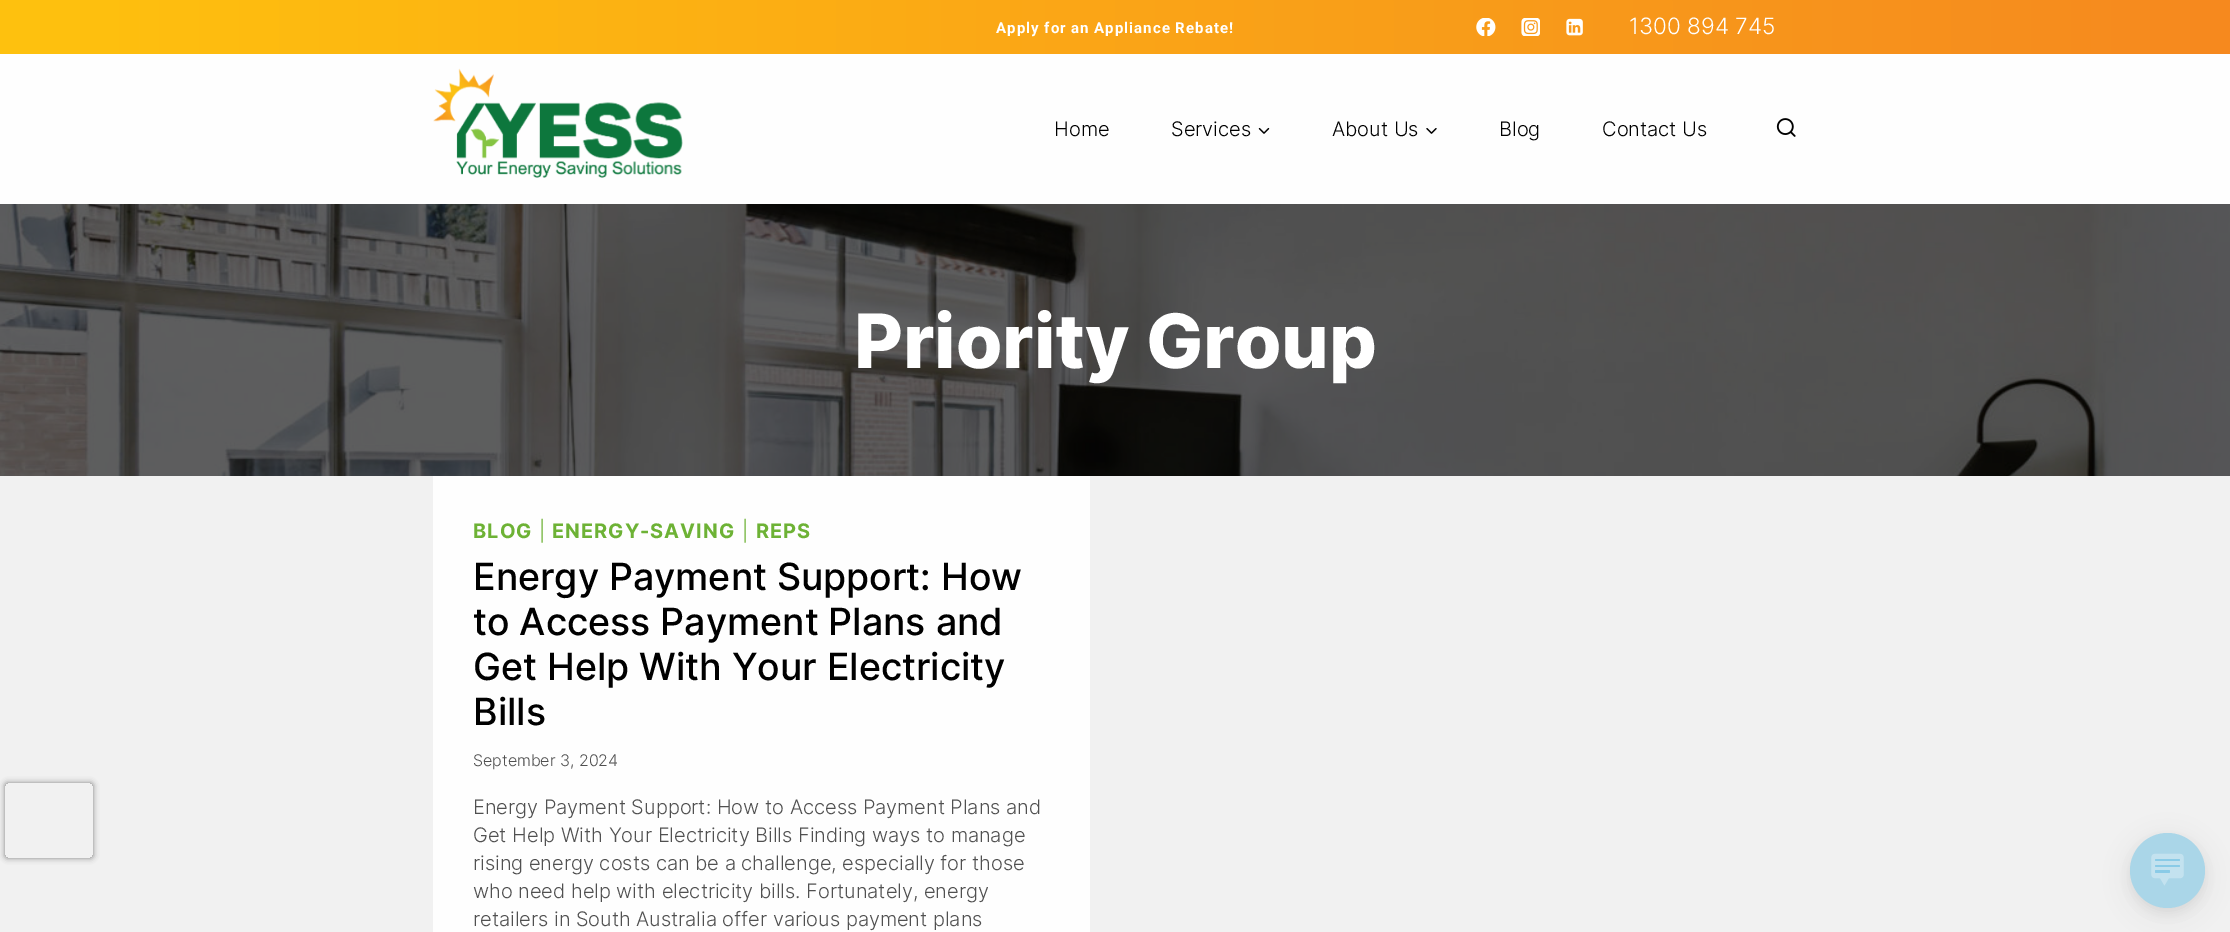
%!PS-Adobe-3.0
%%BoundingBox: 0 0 2230 932
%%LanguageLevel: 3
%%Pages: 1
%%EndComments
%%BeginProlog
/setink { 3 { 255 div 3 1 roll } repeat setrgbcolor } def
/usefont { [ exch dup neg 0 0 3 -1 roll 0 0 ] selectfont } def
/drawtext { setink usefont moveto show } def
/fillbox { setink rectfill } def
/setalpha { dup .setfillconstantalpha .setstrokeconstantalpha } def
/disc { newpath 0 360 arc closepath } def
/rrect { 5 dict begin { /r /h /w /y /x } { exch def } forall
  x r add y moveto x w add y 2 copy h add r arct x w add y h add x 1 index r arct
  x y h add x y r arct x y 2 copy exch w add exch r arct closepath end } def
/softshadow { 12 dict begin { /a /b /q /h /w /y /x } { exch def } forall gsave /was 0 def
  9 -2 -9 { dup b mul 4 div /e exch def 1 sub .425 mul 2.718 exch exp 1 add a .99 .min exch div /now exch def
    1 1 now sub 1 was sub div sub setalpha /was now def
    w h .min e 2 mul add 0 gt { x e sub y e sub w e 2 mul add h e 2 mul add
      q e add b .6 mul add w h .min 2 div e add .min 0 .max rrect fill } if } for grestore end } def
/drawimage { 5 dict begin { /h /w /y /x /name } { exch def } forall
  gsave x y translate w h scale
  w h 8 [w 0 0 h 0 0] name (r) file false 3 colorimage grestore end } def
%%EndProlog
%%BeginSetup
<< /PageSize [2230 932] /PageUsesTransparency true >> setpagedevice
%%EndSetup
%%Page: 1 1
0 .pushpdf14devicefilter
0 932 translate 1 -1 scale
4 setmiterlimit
0 0 2230 932 241 241 241 fillbox
gsave
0 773 moveto 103 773 lineto 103 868 lineto 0 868 lineto closepath 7.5 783 moveto 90.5 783 lineto 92 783 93 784 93 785.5 curveto 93 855.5 lineto 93 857 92 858 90.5 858 curveto 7.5 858 lineto 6 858 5 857 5 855.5 curveto 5 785.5 lineto 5 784 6 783 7.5 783 curveto closepath eoclip newpath
128 128 128 setink
5 783 88 75 2.5 3 1 softshadow
grestore
0 54 2230 150 254 254 254 fillbox
gsave 0 0 moveto 2230 0 lineto 2230 54 lineto 0 54 lineto closepath clip newpath
<< /ShadingType 2 /ColorSpace /DeviceRGB /Coords [0 27 2230 27] /Extend [true true] /Function << /FunctionType 2 /Domain [0 1] /C0 [1 0.761 0.055] /C1 [0.965 0.537 0.122] /N 1 >> >> shfill grestore
/Roboto-Bold 15 usefont
255 255 255 setink
996 33 moveto 1 0 (Apply for an Appliance Rebate!) ashow
(assets/img1.rgb) 1476 18 20 18 drawimage
(assets/img2.rgb) 1521 18 19 18 drawimage
(assets/img3.rgb) 1566 18 17 18 drawimage
(1300 894 745) 1629 34 /Inter-Light 22.5 255 255 255 drawtext
(assets/img4.rgb) 433 68 250 110 drawimage
(Home) 1054 136 /Inter-Light 20 0 0 0 drawtext
(Services) 1171 136 /Inter-Light 20 0 0 0 drawtext
(assets/img5.rgb) 1258 127 12 7 drawimage
(About Us) 1332 136 /Inter-Light 20 0 0 0 drawtext
(assets/img6.rgb) 1426 128 11 6 drawimage
(Blog) 1499 136 /Inter-Light 20 0 0 0 drawtext
(Contact Us) 1602 136 /Inter-Light 20 0 0 0 drawtext
(assets/img7.rgb) 1776 118 20 19 drawimage
(assets/img8.rgb) 0 204 2230 272 drawimage
(Priority Group) 854 368 /Inter-ExtraBold 75 255 255 255 drawtext
433 476 657 456 254 254 254 fillbox
/Inter-Bold 20 usefont
109 178 53 setink
473 538 moveto 1 0 (BLOG) ashow
/Inter-Light 20 usefont
539 538 moveto 1 0 (|) ashow
/Inter-Bold 20 usefont
552 538 moveto 1 0 (ENERGY-SAVING) ashow
/Inter-Light 20 usefont
742 538 moveto 1 0 (|) ashow
/Inter-Bold 20 usefont
756 538 moveto 1 0 (REPS) ashow
(Energy Payment Support: How) 473 590 /Inter-Medium 37.5 0 0 0 drawtext
(to Access Payment Plans and) 473 635 /Inter-Medium 37.5 0 0 0 drawtext
(Get Help With Your Electricity) 473 680 /Inter-Medium 37.5 0 0 0 drawtext
(Bills) 473 725 /Inter-Medium 37.5 0 0 0 drawtext
(September 3, 2024) 473 766 /Inter-Light 16 80 80 80 drawtext
(Energy Payment Support: How to Access Payment Plans and) 473 814 /Inter-Light 20 80 80 80 drawtext
(Get Help With Your Electricity Bills Finding ways to manage) 473 842 /Inter-Light 20 80 80 80 drawtext
(rising energy costs can be a challenge, especially for those) 473 870 /Inter-Light 20 80 80 80 drawtext
(who need help with electricity bills. Fortunately, energy) 473 898 /Inter-Light 20 80 80 80 drawtext
(retailers in South Australia offer various payment plans) 473 926 /Inter-Light 20 80 80 80 drawtext
169 169 169 setink
2130 840 75 75 37.5 12.5 0.19 softshadow
2130 838 75 75 37.5 5 0.2 softshadow
170 214 232 setink
2167.5 870.5 37.5 disc fill
(assets/img9.rgb) 2151 853 33 33 drawimage
.poppdf14devicefilter showpage
%%EOF
